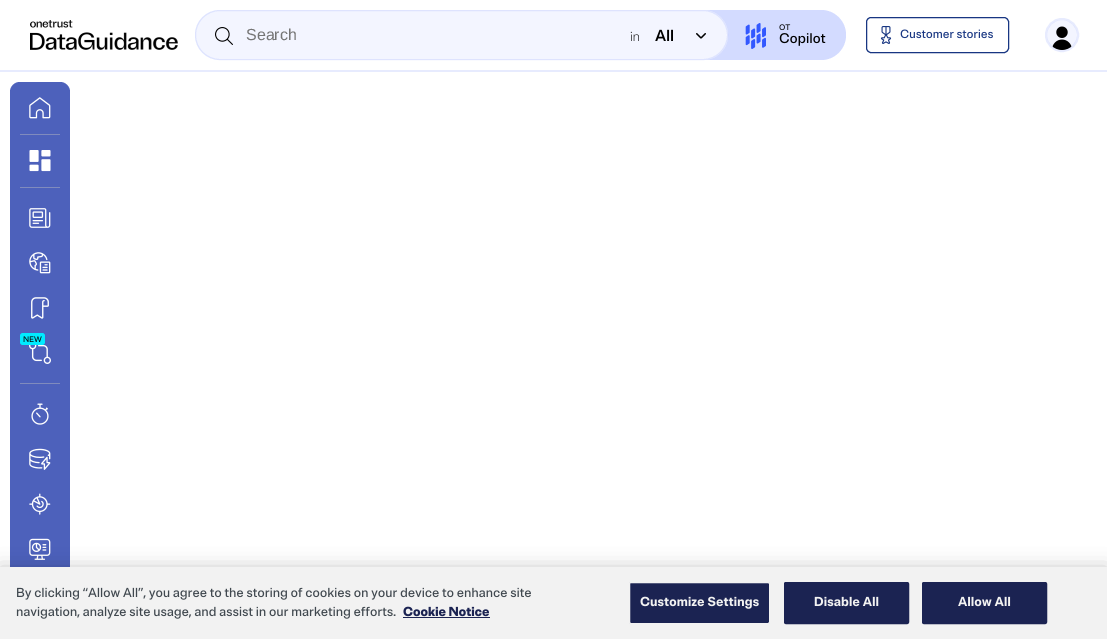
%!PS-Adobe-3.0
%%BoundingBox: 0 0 1107 639
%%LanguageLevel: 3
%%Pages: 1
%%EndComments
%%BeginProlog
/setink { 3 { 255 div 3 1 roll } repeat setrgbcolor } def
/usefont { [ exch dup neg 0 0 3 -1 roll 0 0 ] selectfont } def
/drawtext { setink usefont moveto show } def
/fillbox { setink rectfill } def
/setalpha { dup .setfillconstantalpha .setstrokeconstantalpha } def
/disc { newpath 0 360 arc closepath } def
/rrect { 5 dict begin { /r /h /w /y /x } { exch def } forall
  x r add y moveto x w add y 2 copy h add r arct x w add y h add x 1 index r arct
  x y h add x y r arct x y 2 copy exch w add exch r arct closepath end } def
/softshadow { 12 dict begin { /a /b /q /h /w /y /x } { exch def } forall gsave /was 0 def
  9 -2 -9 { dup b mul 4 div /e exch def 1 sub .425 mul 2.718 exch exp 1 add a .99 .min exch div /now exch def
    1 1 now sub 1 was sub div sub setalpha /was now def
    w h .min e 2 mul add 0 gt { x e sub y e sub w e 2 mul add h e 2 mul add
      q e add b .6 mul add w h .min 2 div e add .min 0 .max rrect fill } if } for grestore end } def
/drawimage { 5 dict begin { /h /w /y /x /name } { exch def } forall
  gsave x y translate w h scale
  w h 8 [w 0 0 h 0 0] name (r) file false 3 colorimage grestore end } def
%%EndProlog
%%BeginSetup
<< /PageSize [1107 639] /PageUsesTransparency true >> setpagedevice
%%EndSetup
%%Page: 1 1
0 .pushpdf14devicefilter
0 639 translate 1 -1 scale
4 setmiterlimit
0 0 1107 639 255 255 255 fillbox
0 70 1107 2 231 235 254 fillbox
(assets/img1.rgb) 30 20 148 30 drawimage
211 219 255 setink
678 10 168 50 25 rrect fill
255 255 255 setink
195 10 533 50 25 rrect fill
0.12 setalpha
156 173 252 setink
195 10 533 50 25 rrect fill
0.22 setalpha
146 165 252 setink
195.5 10.5 532 49 24.5 rrect stroke
1 setalpha
(assets/img2.rgb) 215 27 18 18 drawimage
(Search) 246 40 /LiberationSans-Regular 16 117 117 117 drawtext
(assets/img3.rgb) 630 31 9 10 drawimage
(assets/img4.rgb) 655 29 18 12 drawimage
(assets/img5.rgb) 696 33 10 6 drawimage
(assets/img6.rgb) 745 23 21 26 drawimage
(assets/img7.rgb) 779 24 12 7 drawimage
(assets/img8.rgb) 779 33 47 13 drawimage
24 54 130 setink
866.5 17.5 142 35 4.5 rrect stroke
(assets/img9.rgb) 880 26 12 18 drawimage
(assets/img10.rgb) 900 29 93 10 drawimage
231 235 254 setink
2 setlinewidth
1062 35 16 disc stroke
0.12 setalpha
156 173 252 setink
1062 35 15 disc fill
1 setalpha
(assets/img11.rgb) 1052 26 20 24 drawimage
77 97 187 setink
10 82 60 547 10 rrect fill
(assets/img12.rgb) 29 97 22 22 drawimage
20 134 40 1 128 139 189 fillbox
(assets/img13.rgb) 29 150 22 22 drawimage
20 187 40 1 128 139 189 fillbox
(assets/img14.rgb) 29 208 22 20 drawimage
(assets/img15.rgb) 29 252 22 22 drawimage
(assets/img16.rgb) 31 297 18 22 drawimage
(assets/img18.rgb) 29 344 22 20 drawimage
0 234 255 setink
20 333 25 12 3 rrect fill
(assets/img17.rgb) 23 336 19 6 drawimage
20 383 40 1 128 139 189 fillbox
(assets/img19.rgb) 31 403 18 22 drawimage
(assets/img20.rgb) 29 448 22 22 drawimage
(assets/img21.rgb) 29 493 22 22 drawimage
(assets/img22.rgb) 29 538 22 22 drawimage
0 0 0 setink
0 567 1107 72 0 9 0.2 softshadow
0 567 1107 72 242 242 242 fillbox
(assets/img23.rgb) 17 587 514 13 drawimage
(assets/img24.rgb) 16 606 380 13 drawimage
(assets/img25.rgb) 403 606 86 11 drawimage
403 617 87 1 27 35 82 fillbox
629.5 582.5 140 41 1.5 rrect gsave fill grestore
242 242 242 setink
1 setlinewidth
stroke
(assets/img26.rgb) 640 596 119 13 drawimage
27 35 82 setink
784.5 582.5 124 41 1.5 rrect gsave fill grestore
stroke
(assets/img27.rgb) 814 596 65 11 drawimage
922.5 582.5 124 41 1.5 rrect gsave fill grestore
stroke
(assets/img28.rgb) 958 596 53 11 drawimage
.poppdf14devicefilter showpage
%%EOF
